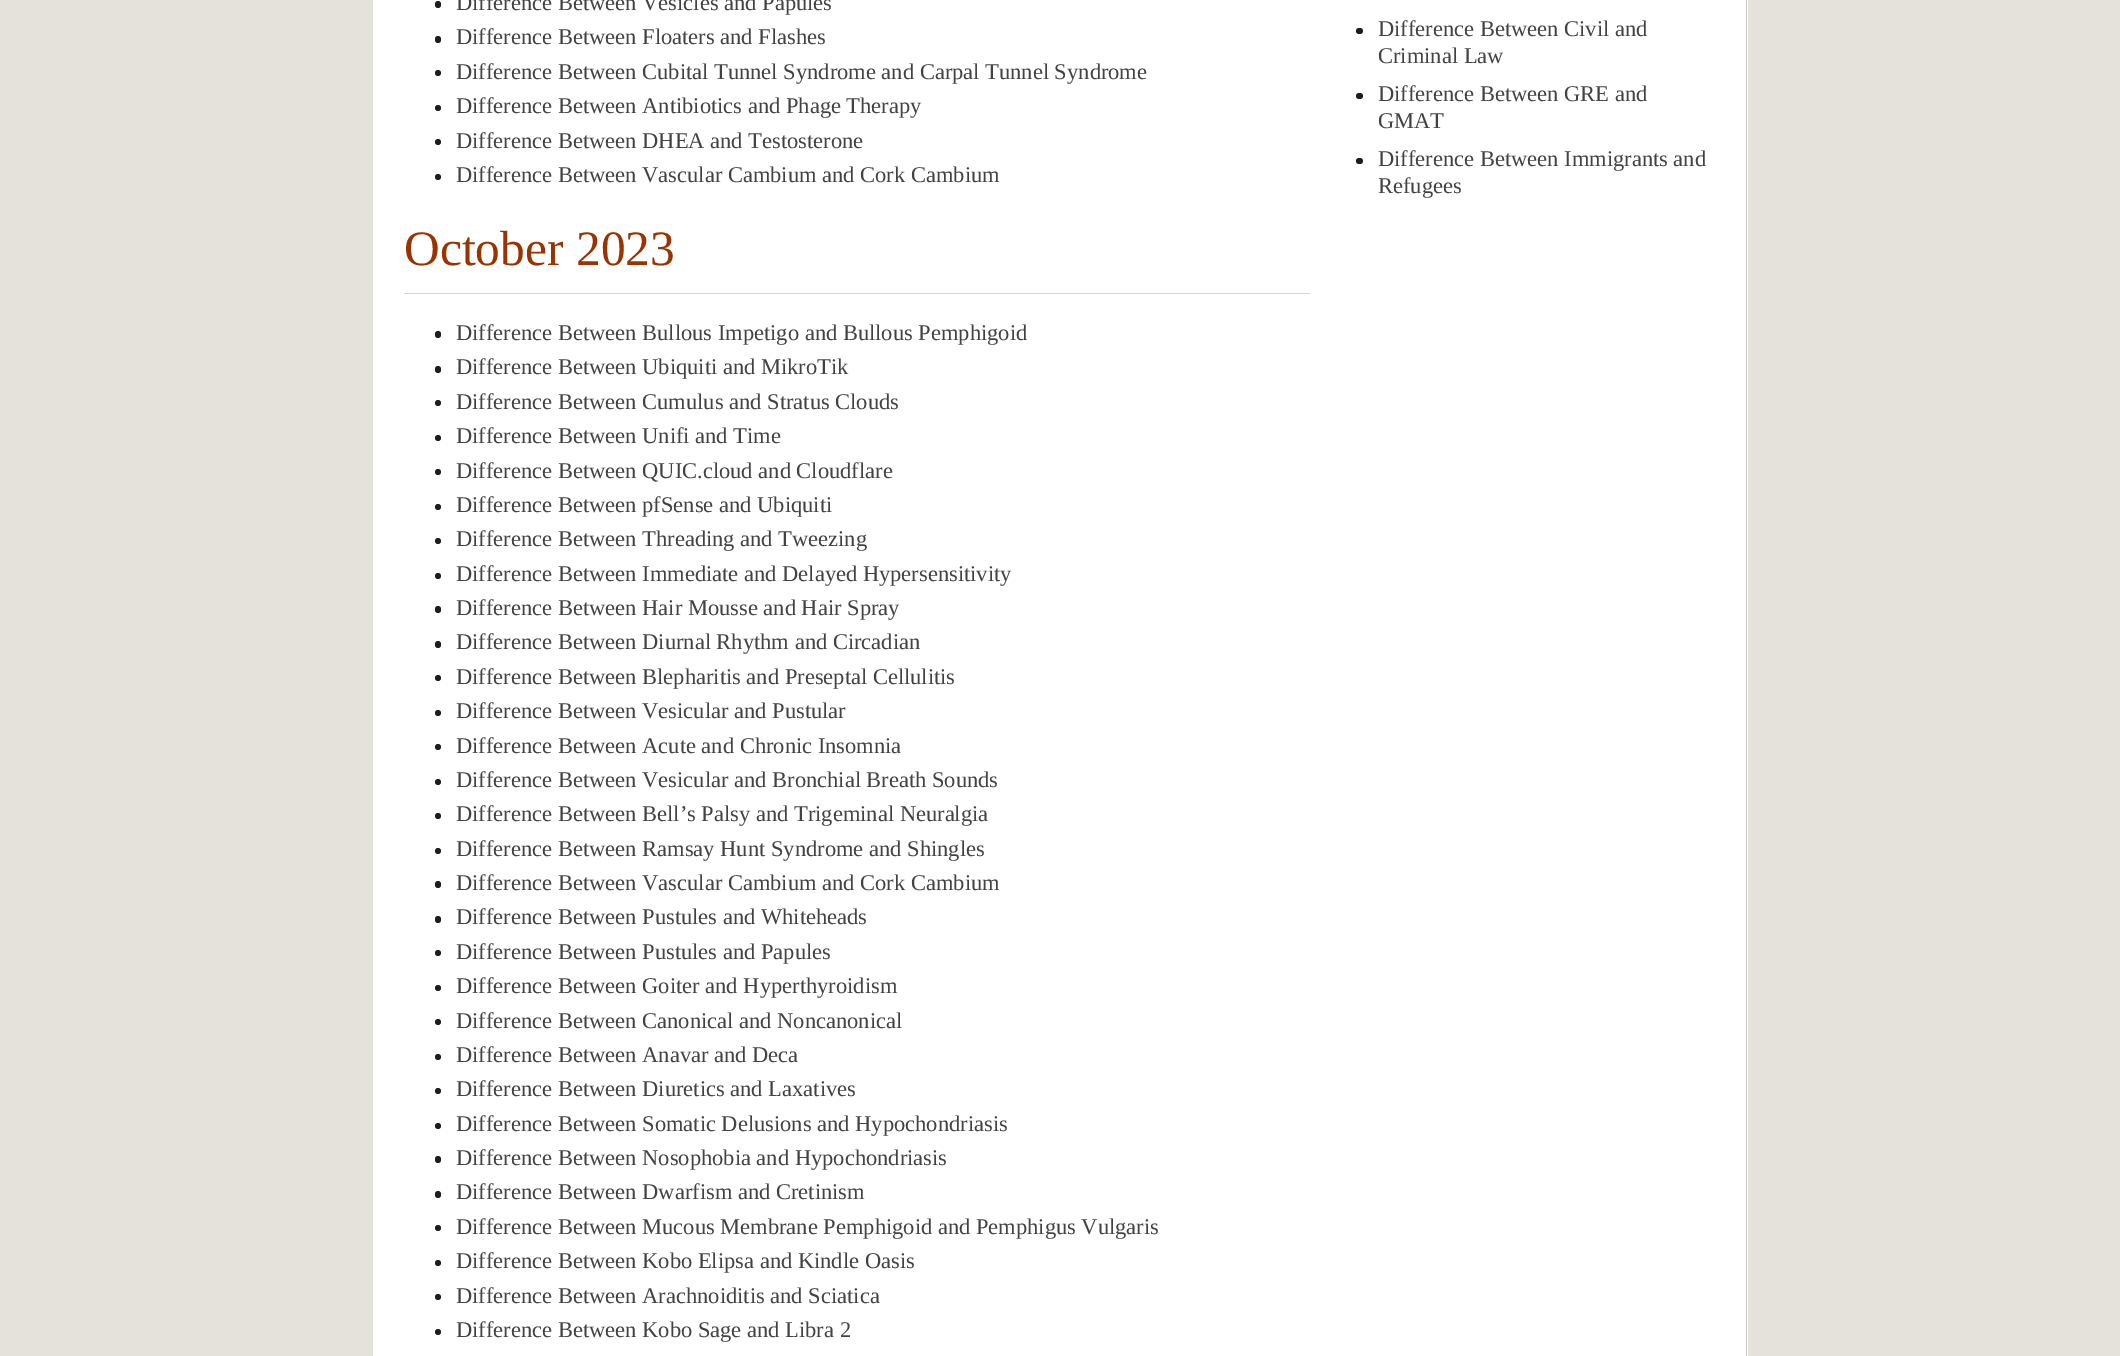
%!PS-Adobe-3.0
%%BoundingBox: 0 0 2120 1356
%%LanguageLevel: 3
%%Pages: 1
%%EndComments
%%BeginProlog
/setink { 3 { 255 div 3 1 roll } repeat setrgbcolor } def
/usefont { [ exch dup neg 0 0 3 -1 roll 0 0 ] selectfont } def
/drawtext { setink usefont moveto show } def
/fillbox { setink rectfill } def
/disc { newpath 0 360 arc closepath } def
/rrect { 5 dict begin { /r /h /w /y /x } { exch def } forall
  x r add y moveto x w add y 2 copy h add r arct x w add y h add x 1 index r arct
  x y h add x y r arct x y 2 copy exch w add exch r arct closepath end } def
%%EndProlog
%%BeginSetup
<< /PageSize [2120 1356] >> setpagedevice
%%EndSetup
%%Page: 1 1
0 1356 translate 1 -1 scale
4 setmiterlimit
0 0 2120 1356 228 226 219 fillbox
373 0 1375 1356 255 255 255 fillbox
1746 0 1 1356 202 200 194 fillbox
29 29 29 setink
435 1 6 7 3 rrect fill
(Difference Between Vesicles and Papules) 456 10 /LiberationSerif-Regular 22.5 66 66 66 drawtext
29 29 29 setink
435 36 6 7 3 rrect fill
(Difference Between Floaters and Flashes) 456 44 /LiberationSerif-Regular 22.5 66 66 66 drawtext
29 29 29 setink
438 73 3 disc fill
(Difference Between Cubital Tunnel Syndrome and Carpal Tunnel Syndrome) 456 79 /LiberationSerif-Regular 22.5 66 66 66 drawtext
29 29 29 setink
438 108 3 disc fill
(Difference Between Antibiotics and Phage Therapy) 456 113 /LiberationSerif-Regular 22.5 66 66 66 drawtext
29 29 29 setink
438 142 3 disc fill
(Difference Between DHEA and Testosterone) 456 148 /LiberationSerif-Regular 22.5 66 66 66 drawtext
29 29 29 setink
438 177 3 disc fill
(Difference Between Vascular Cambium and Cork Cambium) 456 182 /LiberationSerif-Regular 22.5 66 66 66 drawtext
404 293 906 1 215 215 215 fillbox
(October 2023) 404 265 /LiberationSerif-Regular 49.5 153 51 0 drawtext
29 29 29 setink
435 331 6 7 3 rrect fill
(Difference Between Bullous Impetigo and Bullous Pemphigoid) 456 340 /LiberationSerif-Regular 22.5 66 66 66 drawtext
29 29 29 setink
435 366 6 7 3 rrect fill
(Difference Between Ubiquiti and MikroTik) 456 374 /LiberationSerif-Regular 22.5 66 66 66 drawtext
29 29 29 setink
438 403 3 disc fill
(Difference Between Cumulus and Stratus Clouds) 456 409 /LiberationSerif-Regular 22.5 66 66 66 drawtext
29 29 29 setink
438 438 3 disc fill
(Difference Between Unifi and Time) 456 443 /LiberationSerif-Regular 22.5 66 66 66 drawtext
29 29 29 setink
438 472 3 disc fill
(Difference Between QUIC.cloud and Cloudflare) 456 478 /LiberationSerif-Regular 22.5 66 66 66 drawtext
29 29 29 setink
438 507 3 disc fill
(Difference Between pfSense and Ubiquiti) 456 512 /LiberationSerif-Regular 22.5 66 66 66 drawtext
29 29 29 setink
438 541 3 disc fill
(Difference Between Threading and Tweezing) 456 546 /LiberationSerif-Regular 22.5 66 66 66 drawtext
29 29 29 setink
438 576 3 disc fill
(Difference Between Immediate and Delayed Hypersensitivity) 456 581 /LiberationSerif-Regular 22.5 66 66 66 drawtext
29 29 29 setink
435 606 6 7 3 rrect fill
(Difference Between Hair Mousse and Hair Spray) 456 615 /LiberationSerif-Regular 22.5 66 66 66 drawtext
29 29 29 setink
435 641 6 7 3 rrect fill
(Difference Between Diurnal Rhythm and Circadian) 456 649 /LiberationSerif-Regular 22.5 66 66 66 drawtext
29 29 29 setink
438 678 3 disc fill
(Difference Between Blepharitis and Preseptal Cellulitis) 456 684 /LiberationSerif-Regular 22.5 66 66 66 drawtext
29 29 29 setink
438 713 3 disc fill
(Difference Between Vesicular and Pustular) 456 718 /LiberationSerif-Regular 22.5 66 66 66 drawtext
29 29 29 setink
438 747 3 disc fill
(Difference Between Acute and Chronic Insomnia) 456 753 /LiberationSerif-Regular 22.5 66 66 66 drawtext
29 29 29 setink
438 782 3 disc fill
(Difference Between Vesicular and Bronchial Breath Sounds) 456 787 /LiberationSerif-Regular 22.5 66 66 66 drawtext
29 29 29 setink
438 816 3 disc fill
(Difference Between Bell’s Palsy and Trigeminal Neuralgia) 456 821 /LiberationSerif-Regular 22.5 66 66 66 drawtext
29 29 29 setink
438 851 3 disc fill
(Difference Between Ramsay Hunt Syndrome and Shingles) 456 856 /LiberationSerif-Regular 22.5 66 66 66 drawtext
29 29 29 setink
435 881 6 7 3 rrect fill
(Difference Between Vascular Cambium and Cork Cambium) 456 890 /LiberationSerif-Regular 22.5 66 66 66 drawtext
29 29 29 setink
435 916 6 7 3 rrect fill
(Difference Between Pustules and Whiteheads) 456 924 /LiberationSerif-Regular 22.5 66 66 66 drawtext
29 29 29 setink
438 953 3 disc fill
(Difference Between Pustules and Papules) 456 959 /LiberationSerif-Regular 22.5 66 66 66 drawtext
29 29 29 setink
438 988 3 disc fill
(Difference Between Goiter and Hyperthyroidism) 456 993 /LiberationSerif-Regular 22.5 66 66 66 drawtext
29 29 29 setink
438 1022 3 disc fill
(Difference Between Canonical and Noncanonical) 456 1028 /LiberationSerif-Regular 22.5 66 66 66 drawtext
29 29 29 setink
438 1057 3 disc fill
(Difference Between Anavar and Deca) 456 1062 /LiberationSerif-Regular 22.5 66 66 66 drawtext
29 29 29 setink
438 1091 3 disc fill
(Difference Between Diuretics and Laxatives) 456 1096 /LiberationSerif-Regular 22.5 66 66 66 drawtext
29 29 29 setink
438 1126 3 disc fill
(Difference Between Somatic Delusions and Hypochondriasis) 456 1131 /LiberationSerif-Regular 22.5 66 66 66 drawtext
29 29 29 setink
435 1156 6 7 3 rrect fill
(Difference Between Nosophobia and Hypochondriasis) 456 1165 /LiberationSerif-Regular 22.5 66 66 66 drawtext
29 29 29 setink
435 1191 6 7 3 rrect fill
(Difference Between Dwarfism and Cretinism) 456 1199 /LiberationSerif-Regular 22.5 66 66 66 drawtext
29 29 29 setink
438 1228 3 disc fill
(Difference Between Mucous Membrane Pemphigoid and Pemphigus Vulgaris) 456 1234 /LiberationSerif-Regular 22.5 66 66 66 drawtext
29 29 29 setink
438 1263 3 disc fill
(Difference Between Kobo Elipsa and Kindle Oasis) 456 1268 /LiberationSerif-Regular 22.5 66 66 66 drawtext
29 29 29 setink
438 1297 3 disc fill
(Difference Between Arachnoiditis and Sciatica) 456 1303 /LiberationSerif-Regular 22.5 66 66 66 drawtext
29 29 29 setink
438 1332 3 disc fill
(Difference Between Kobo Sage and Libra 2) 456 1337 /LiberationSerif-Regular 22.5 66 66 66 drawtext
29 29 29 setink
1356 28 7 6 3 rrect fill
(Difference Between Civil and) 1378 36 /LiberationSerif-Regular 22.5 66 66 66 drawtext
(Criminal Law) 1378 63 /LiberationSerif-Regular 22.5 66 66 66 drawtext
29 29 29 setink
1356 93 7 6 3 rrect fill
(Difference Between GRE and) 1378 101 /LiberationSerif-Regular 22.5 66 66 66 drawtext
(GMAT) 1378 128 /LiberationSerif-Regular 22.5 66 66 66 drawtext
29 29 29 setink
1356 158 7 6 3 rrect fill
(Difference Between Immigrants and) 1378 166 /LiberationSerif-Regular 22.5 66 66 66 drawtext
(Refugees) 1378 193 /LiberationSerif-Regular 22.5 66 66 66 drawtext
showpage
%%EOF
